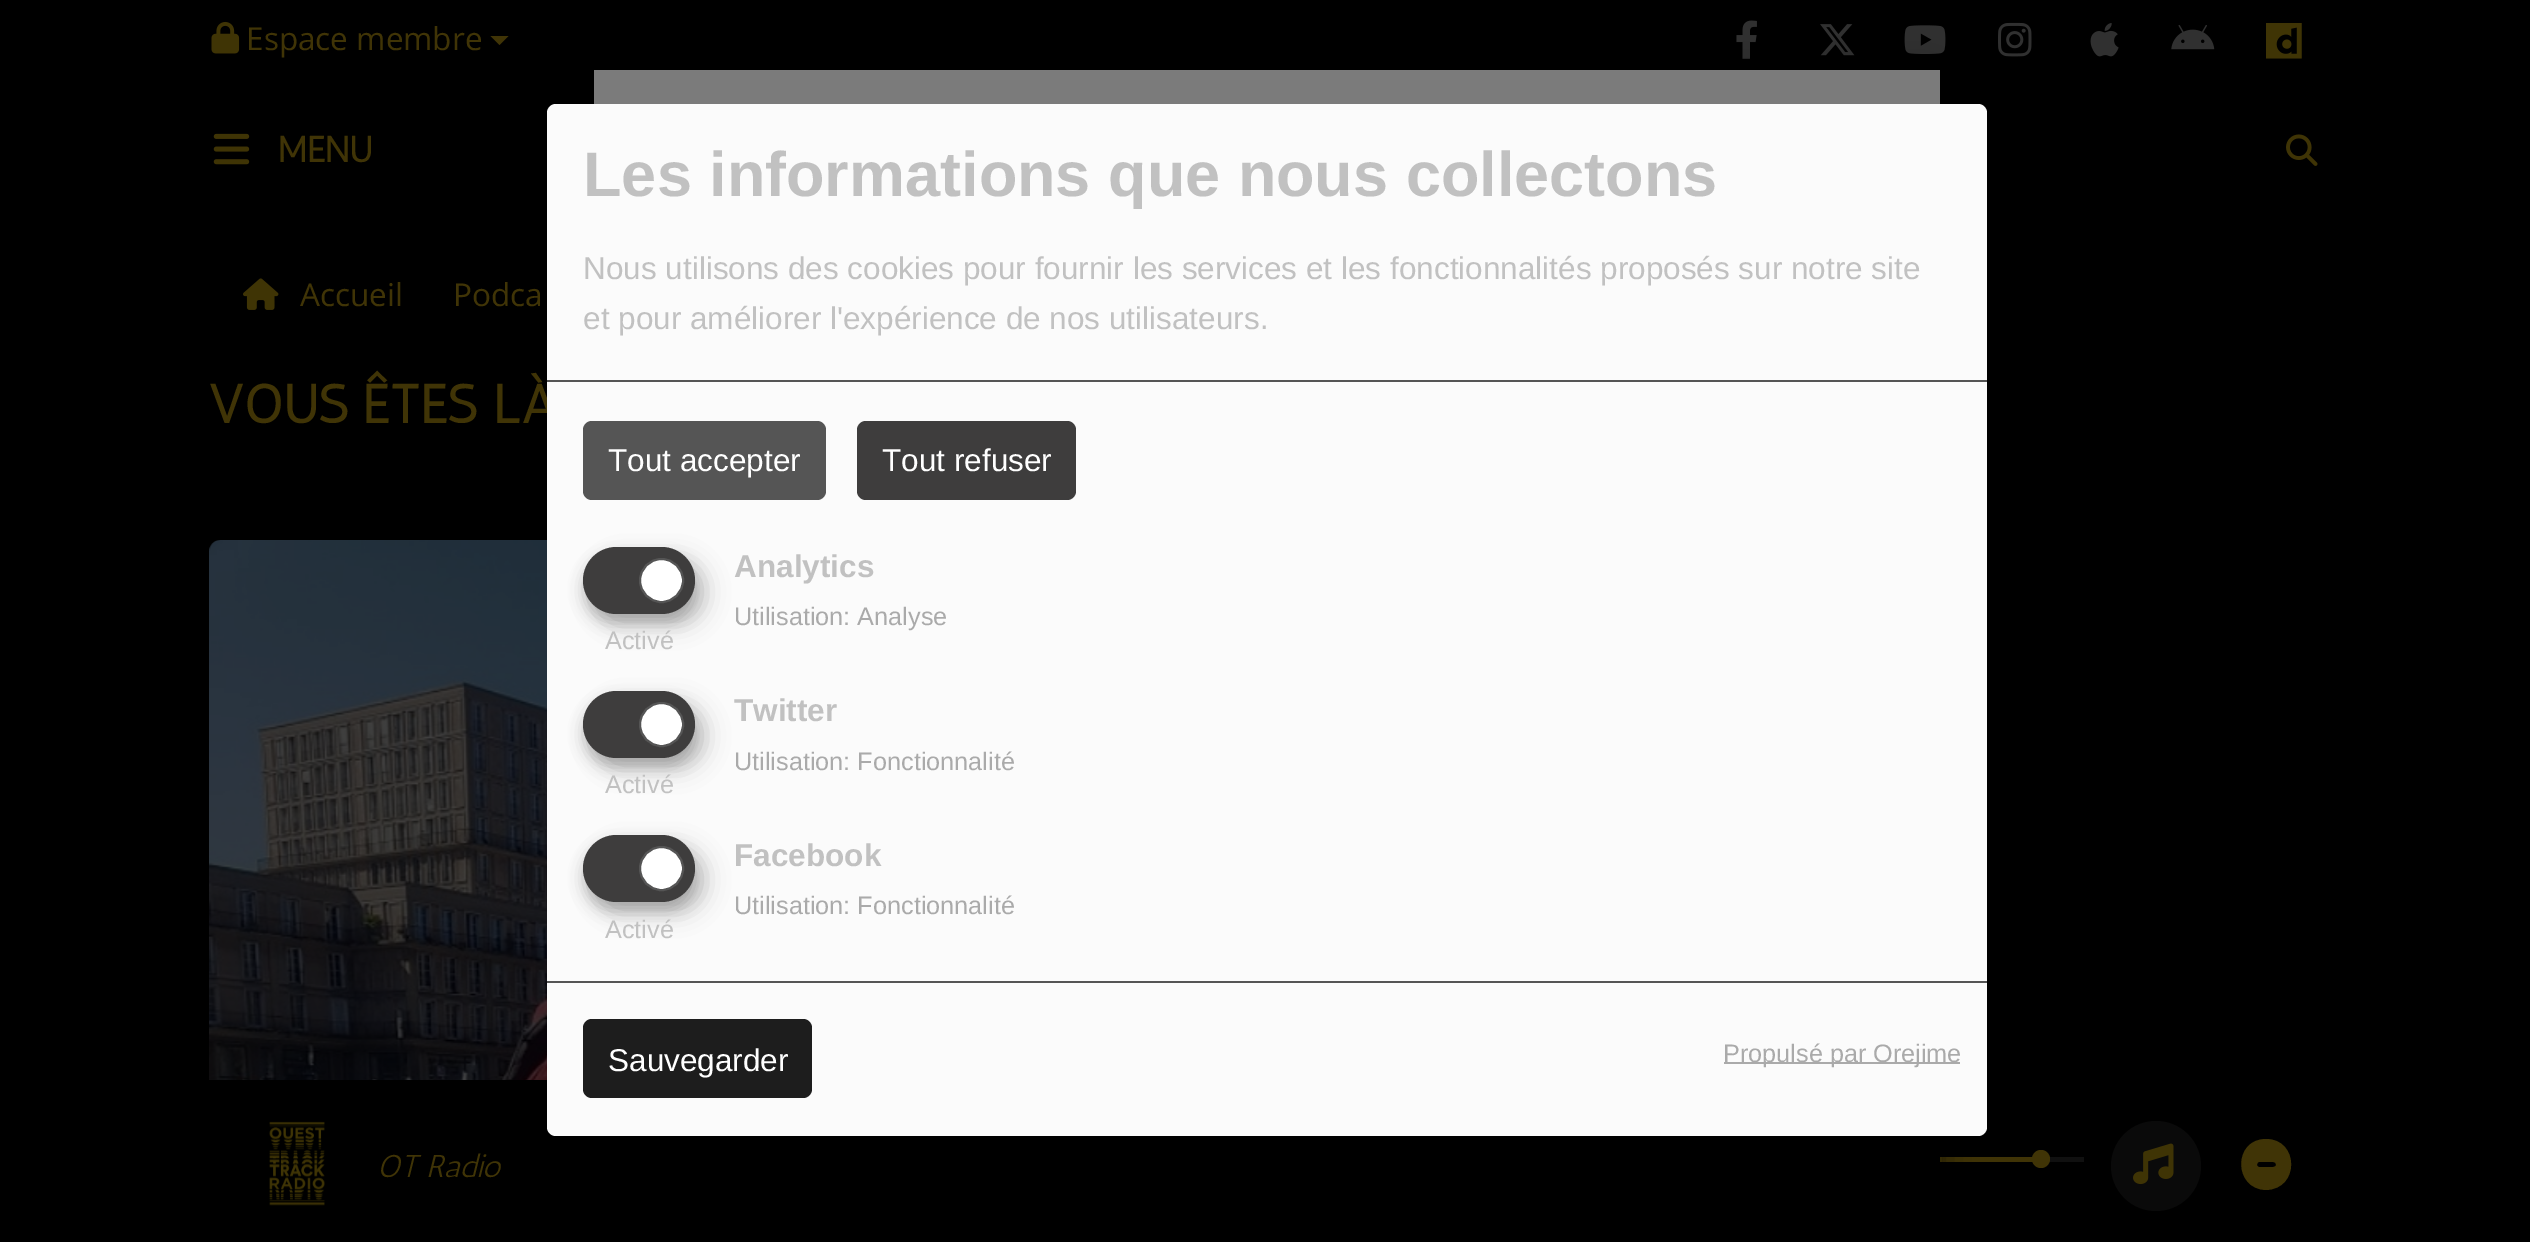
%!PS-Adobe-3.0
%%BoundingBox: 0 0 2530 1242
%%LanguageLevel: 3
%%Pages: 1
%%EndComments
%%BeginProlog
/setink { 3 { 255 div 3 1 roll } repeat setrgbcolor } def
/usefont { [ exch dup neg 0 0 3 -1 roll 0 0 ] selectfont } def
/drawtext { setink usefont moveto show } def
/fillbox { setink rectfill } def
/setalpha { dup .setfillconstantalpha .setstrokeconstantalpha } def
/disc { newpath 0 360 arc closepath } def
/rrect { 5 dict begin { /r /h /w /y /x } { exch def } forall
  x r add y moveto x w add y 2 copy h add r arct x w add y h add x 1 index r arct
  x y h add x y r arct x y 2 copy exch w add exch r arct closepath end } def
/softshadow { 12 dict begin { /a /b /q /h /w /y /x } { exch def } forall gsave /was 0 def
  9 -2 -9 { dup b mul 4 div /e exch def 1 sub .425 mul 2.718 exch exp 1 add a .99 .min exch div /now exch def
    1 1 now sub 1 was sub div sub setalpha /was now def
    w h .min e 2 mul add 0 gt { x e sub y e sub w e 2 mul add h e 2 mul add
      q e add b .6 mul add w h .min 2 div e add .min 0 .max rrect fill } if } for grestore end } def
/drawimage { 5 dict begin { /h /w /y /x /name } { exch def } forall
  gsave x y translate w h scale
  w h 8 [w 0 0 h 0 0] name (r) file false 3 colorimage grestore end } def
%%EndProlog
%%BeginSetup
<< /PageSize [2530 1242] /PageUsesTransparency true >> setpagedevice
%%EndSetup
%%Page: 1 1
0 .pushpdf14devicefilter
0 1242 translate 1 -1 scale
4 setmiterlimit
0 0 2530 1242 0 0 0 fillbox
(assets/img1.rgb) 211 21 29 33 drawimage
(Espace membre) 246 50 /OpenSans-Regular 31.5 64 52 6 drawtext
490.5 36 moveto 508.5 36 lineto 499.5 45 lineto closepath fill
(assets/img2.rgb) 1736 20 21 39 drawimage
(assets/img3.rgb) 1820 24 35 32 drawimage
(assets/img4.rgb) 1904 25 42 29 drawimage
(assets/img5.rgb) 1998 22 34 35 drawimage
(assets/img6.rgb) 2090 23 29 34 drawimage
(assets/img7.rgb) 2171 25 44 25 drawimage
(assets/img8.rgb) 2266 23 36 36 drawimage
(assets/img9.rgb) 213 133 37 32 drawimage
(MENU) 278 162 /Antic-Bold 36 64 52 6 drawtext
(assets/img10.rgb) 2286 134 32 32 drawimage
(assets/img11.rgb) 269 1121 56 85 drawimage
(OT Radio) 377 1177 /Antic-Italic 31.5 64 52 6 drawtext
1940 1157 93 5 64 52 6 fillbox
2049 1157 35 5 16 16 16 fillbox
64 52 6 setink
2041 1159 9 disc fill
10 10 10 setink
2156 1166 45 disc fill
(assets/img12.rgb) 2133 1143 41 42 drawimage
64 52 6 setink
2266 1190 moveto 2300 1189 2299 1139 2266 1139 curveto 2233 1139 2233 1189 2266 1190 curveto closepath 2259 1162 moveto 2273 1162 lineto 2275 1162 2276 1163 2276 1165 curveto 2276 1166 2275 1167 2273 1167 curveto 2259 1167 lineto 2258 1167 2257 1166 2257 1165 curveto 2257 1163 2258 1162 2259 1162 curveto closepath fill
(assets/img14.rgb) 209 540 338 540 drawimage
gsave
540 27 moveto 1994 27 lineto 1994 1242 lineto 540 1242 lineto closepath 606 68 moveto 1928 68 lineto 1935.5 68 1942 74.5 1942 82 curveto 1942 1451 lineto 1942 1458.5 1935.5 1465 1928 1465 curveto 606 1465 lineto 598.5 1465 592 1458.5 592 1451 curveto 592 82 lineto 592 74.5 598.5 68 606 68 curveto closepath eoclip newpath
0 0 0 setink
592 79 1350 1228 14 17 0.5 softshadow
grestore
0.2 setalpha
0 0 0 setink
2 setlinewidth
593 69 1348 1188 13 rrect stroke
1 setalpha
594 70 1346 34 123 123 123 fillbox
(assets/img13.rgb) 243 278 36 32 drawimage
(Accueil) 300 306 /OpenSans-Regular 31.5 64 52 6 drawtext
(Podca) 453 306 /OpenSans-Regular 31.5 64 52 6 drawtext
(VOUS ÊTES LÀ) 208 423 /Antic-Bold 54 64 52 6 drawtext
251 251 251 setink
547 104 1440 1032 9 rrect fill
547 380 1440 2 85 85 85 fillbox
(Les informations que nous collectons) 583 196 /LiberationSans-Bold 63 193 193 193 drawtext
(Nous utilisons des cookies pour fournir les services et les fonctionnalités proposés sur notre site) 583 279 /LiberationSans-Regular 31.5 193 193 193 drawtext
(et pour améliorer l'expérience de nos utilisateurs.) 583 329 /LiberationSans-Regular 31.5 193 193 193 drawtext
85 85 85 setink
583 421 243 79 9 rrect fill
(Tout accepter) 608 471 /LiberationSans-Regular 31.5 255 255 255 drawtext
62 61 61 setink
857 421 219 79 9 rrect fill
(Tout refuser) 882 471 /LiberationSans-Regular 31.5 255 255 255 drawtext
(Analytics) 734 577 /LiberationSans-Bold 31.5 193 193 193 drawtext
0 0 0 setink
594 558 113 68 34 11 0.19 softshadow
583 556 112 67 33.5 7 0.2 softshadow
62 61 61 setink
583 547 112 67 33.5 rrect fill
255 255 255 setink
661.5 580.5 21.5 disc gsave fill grestore
85 85 85 setink
stroke
(Activé) 605 649 /LiberationSans-Regular 25.25 193 193 193 drawtext
(Utilisation: Analyse) 734 625 /LiberationSans-Regular 25.25 170 170 170 drawtext
(Twitter) 734 721 /LiberationSans-Bold 31.5 193 193 193 drawtext
0 0 0 setink
594 702 113 68 34 11 0.19 softshadow
583 700 112 67 33.5 7 0.2 softshadow
62 61 61 setink
583 691 112 67 33.5 rrect fill
255 255 255 setink
661.5 724.5 21.5 disc gsave fill grestore
85 85 85 setink
stroke
(Activé) 605 793 /LiberationSans-Regular 25.25 193 193 193 drawtext
(Utilisation: Fonctionnalité) 734 770 /LiberationSans-Regular 25.25 170 170 170 drawtext
(Facebook) 734 866 /LiberationSans-Bold 31.5 193 193 193 drawtext
0 0 0 setink
594 846 113 68 34 11 0.19 softshadow
583 844 112 67 33.5 7 0.2 softshadow
62 61 61 setink
583 835 112 67 33.5 rrect fill
255 255 255 setink
661.5 868.5 21.5 disc gsave fill grestore
85 85 85 setink
stroke
(Activé) 605 938 /LiberationSans-Regular 25.25 193 193 193 drawtext
(Utilisation: Fonctionnalité) 734 914 /LiberationSans-Regular 25.25 170 170 170 drawtext
547 981 1440 2 85 85 85 fillbox
29 29 29 setink
583 1019 229 79 9 rrect fill
(Sauvegarder) 608 1071 /LiberationSans-Regular 31.5 255 255 255 drawtext
1724 1062 236 2 170 170 170 fillbox
(Propulsé par Orejime) 1723 1062 /LiberationSans-Regular 25.25 170 170 170 drawtext
.poppdf14devicefilter showpage
%%EOF
